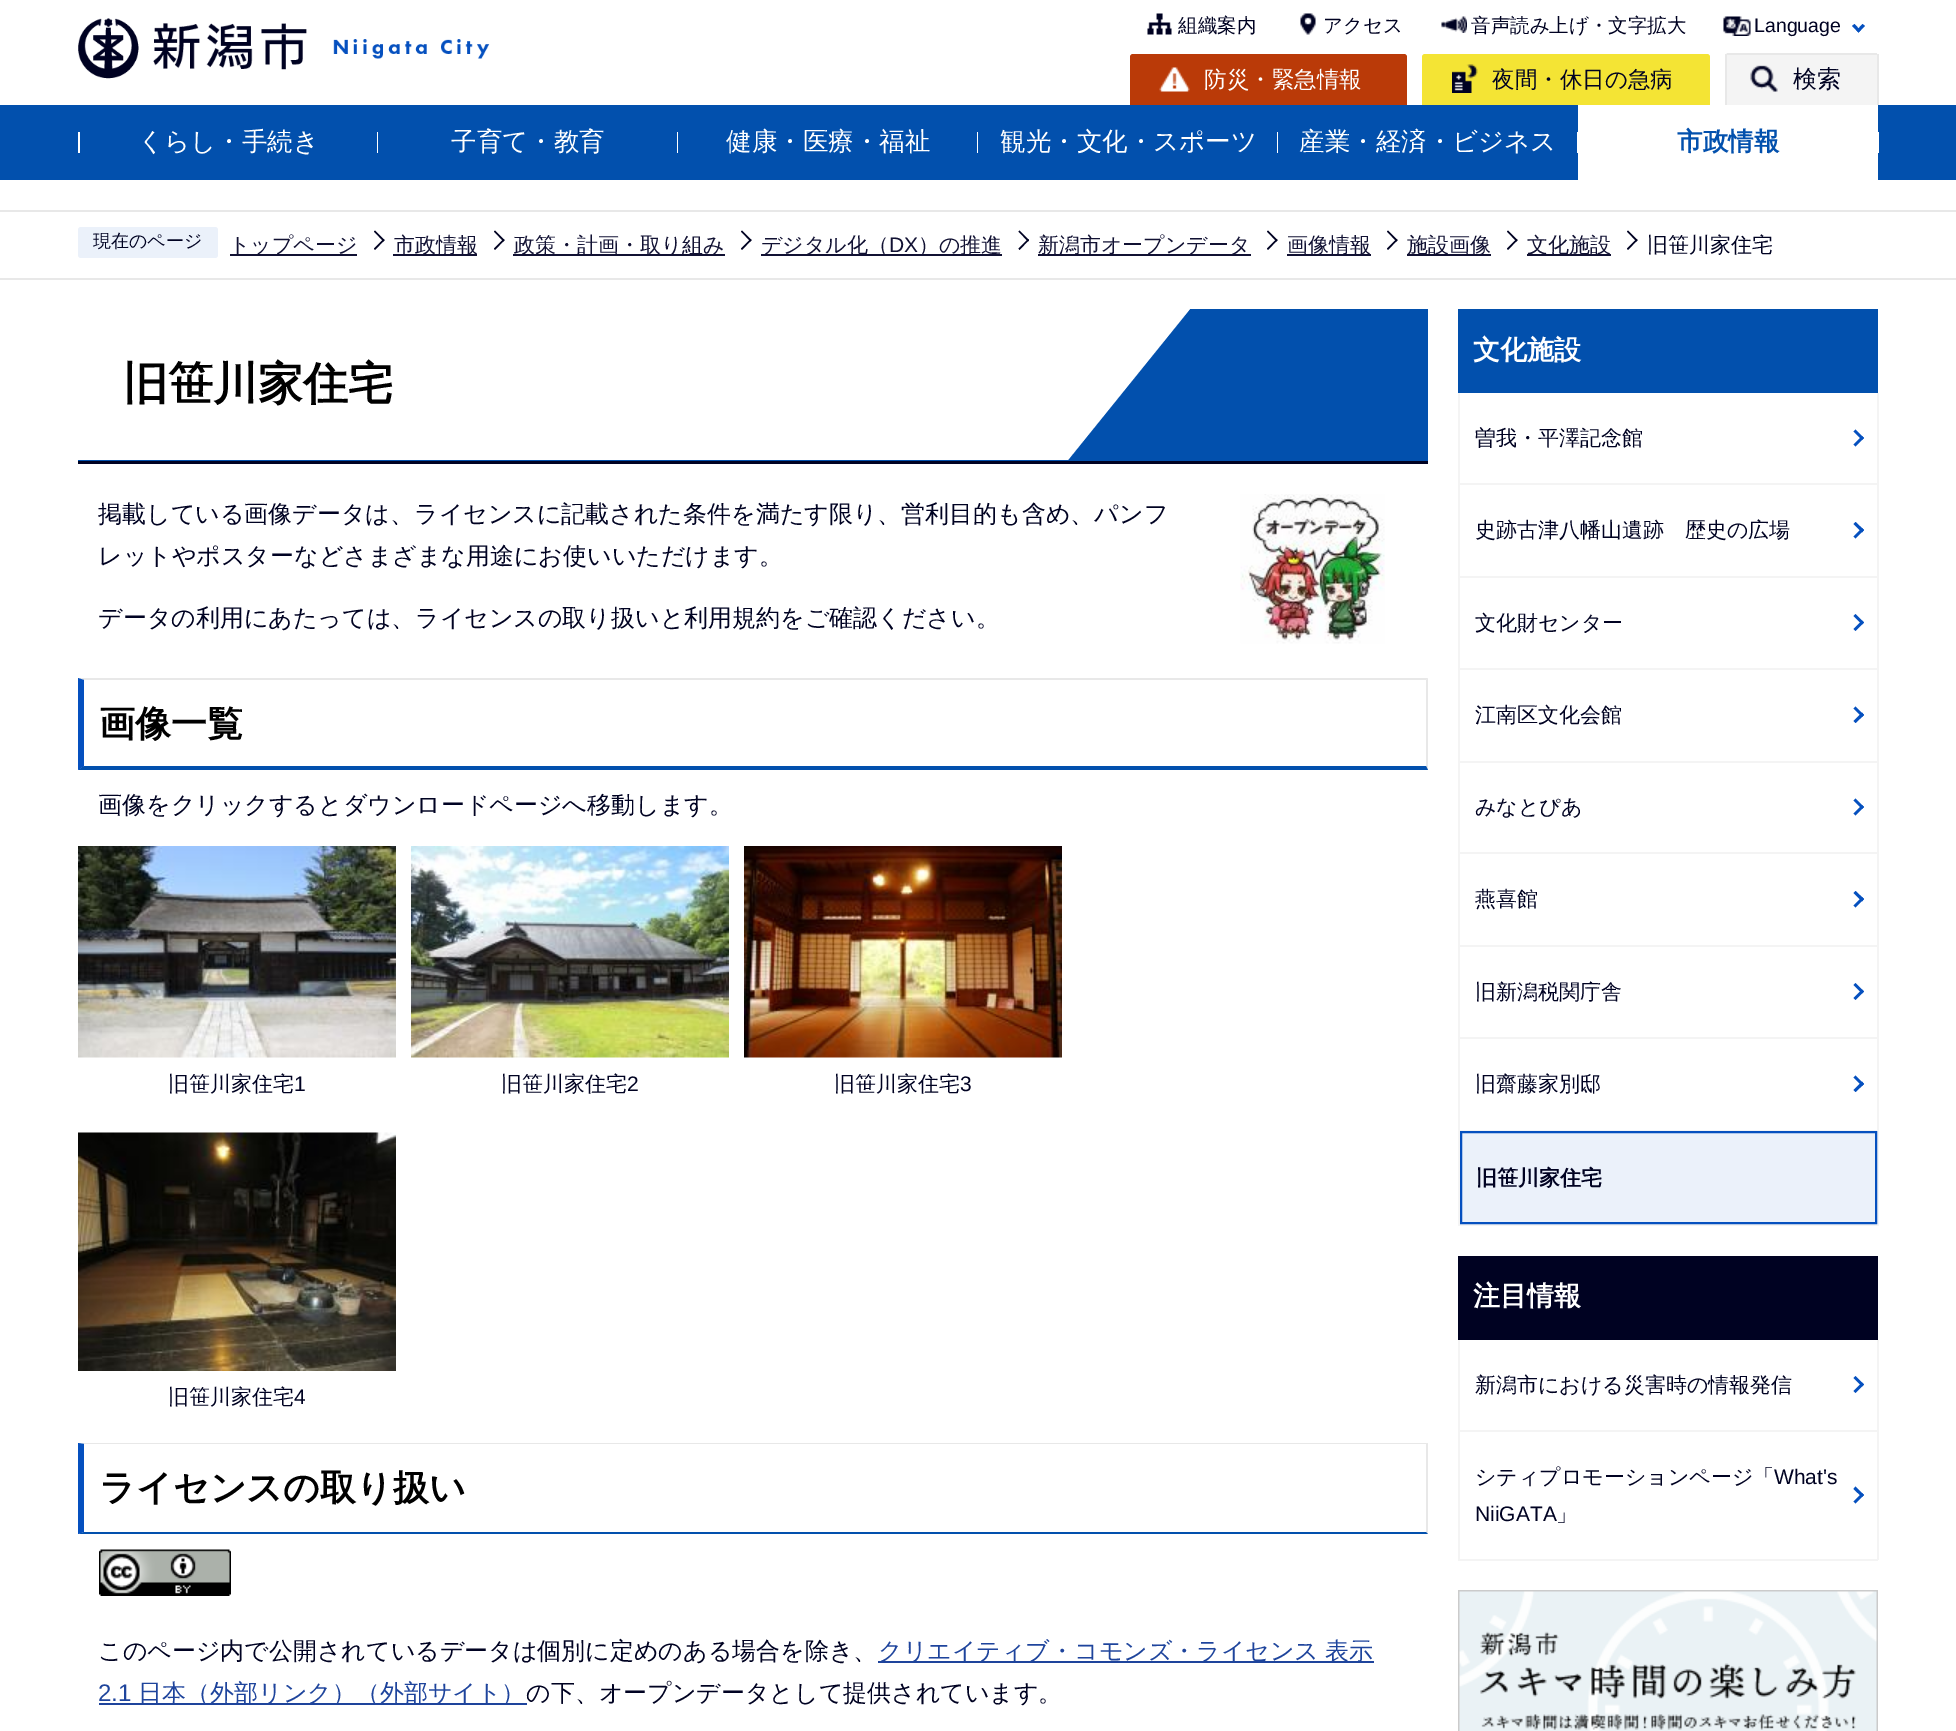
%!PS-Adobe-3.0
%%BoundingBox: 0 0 1956 1731
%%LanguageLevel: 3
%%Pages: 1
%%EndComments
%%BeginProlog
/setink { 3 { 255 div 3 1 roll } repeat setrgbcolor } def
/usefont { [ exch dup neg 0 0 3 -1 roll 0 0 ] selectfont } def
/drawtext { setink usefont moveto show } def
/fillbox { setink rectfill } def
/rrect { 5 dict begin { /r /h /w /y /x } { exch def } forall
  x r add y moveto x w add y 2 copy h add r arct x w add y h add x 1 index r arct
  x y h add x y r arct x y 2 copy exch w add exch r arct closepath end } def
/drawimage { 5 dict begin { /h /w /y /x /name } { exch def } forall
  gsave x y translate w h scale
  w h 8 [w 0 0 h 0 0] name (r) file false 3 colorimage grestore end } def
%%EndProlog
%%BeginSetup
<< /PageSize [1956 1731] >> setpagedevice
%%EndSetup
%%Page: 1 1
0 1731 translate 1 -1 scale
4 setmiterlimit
0 0 1956 1731 255 255 255 fillbox
(assets/img1.rgb) 78 18 412 61 drawimage
(assets/img2.rgb) 1147 13 25 22 drawimage
(組織案内) 1178 32 /WenQuanYiZenHei-Medium 19.5 0 2 34 drawtext
(assets/img3.rgb) 1300 13 16 22 drawimage
(アクセス) 1323 32 /WenQuanYiZenHei-Medium 19.5 0 2 34 drawtext
(assets/img4.rgb) 1441 16 26 17 drawimage
(音声読み上げ・文字拡大) 1471 32 /WenQuanYiZenHei-Medium 19.5 0 2 34 drawtext
(assets/img5.rgb) 1723 16 28 20 drawimage
(Language) 1754 32 /LiberationSans-Regular 19.5 0 2 34 drawtext
5 80 191 setink
1865 26 moveto 1858.5 32.5 lineto 1856.5 30.5 lineto 1862.5 24 lineto closepath fill
1860.5 30.5 moveto 1858.5 32.5 lineto 1852 26 lineto 1854.5 24 lineto closepath fill
186 58 8 setink
1133 54 moveto 1404 54 lineto 1405.5 54 1407 55.5 1407 57 curveto 1407 105 lineto 1130 105 lineto 1130 57 lineto 1130 55.5 1131.5 54 1133 54 curveto closepath fill
(assets/img6.rgb) 1159 67 31 25 drawimage
(防災・緊急情報) 1204 87 /WenQuanYiZenHei-Medium 22.5 255 255 255 drawtext
244 228 52 setink
1425 54 moveto 1707 54 lineto 1708.5 54 1710 55.5 1710 57 curveto 1710 105 lineto 1422 105 lineto 1422 57 lineto 1422 55.5 1423.5 54 1425 54 curveto closepath fill
(assets/img7.rgb) 1452 64 26 29 drawimage
(夜間・休日の急病) 1492 87 /WenQuanYiZenHei-Medium 22.5 0 2 34 drawtext
244 244 244 setink
1728 53 moveto 1875 53 lineto 1876.5 53 1878 54.5 1878 56 curveto 1878 105 lineto 1725 105 lineto 1725 56 lineto 1725 54.5 1726.5 53 1728 53 curveto closepath fill
(assets/img8.rgb) 1750 65 28 27 drawimage
1727 53 150 2 232 232 232 fillbox
1877 54 2 51 232 232 232 fillbox
1725 54 2 51 232 232 232 fillbox
(検索) 1793 87 /WenQuanYiZenHei-Medium 24 0 2 34 drawtext
0 105 1956 75 2 80 173 fillbox
78 132 2 21 255 255 255 fillbox
(くらし・手続き) 138 150 /WenQuanYiZenHei-Medium 25.5 255 255 255 drawtext
377 132 1 21 255 255 255 fillbox
(子育て・教育) 451 150 /WenQuanYiZenHei-Medium 25.5 255 255 255 drawtext
677 132 1 21 255 255 255 fillbox
(健康・医療・福祉) 726 150 /WenQuanYiZenHei-Medium 25.5 255 255 255 drawtext
977 132 1 21 255 255 255 fillbox
(観光・文化・スポーツ) 1000 150 /WenQuanYiZenHei-Medium 25.5 255 255 255 drawtext
1277 132 1 21 255 255 255 fillbox
(産業・経済・ビジネス) 1299 150 /WenQuanYiZenHei-Medium 25.5 255 255 255 drawtext
1577 132 1 21 255 255 255 fillbox
1578 105 300 75 255 255 255 fillbox
(市政情報) 1677 150 /WenQuanYiZenHei-Bold 25.5 2 80 173 drawtext
1878 132 1 21 255 255 255 fillbox
0 210 1956 2 232 232 232 fillbox
0 278 1956 2 232 232 232 fillbox
235 241 250 setink
78 227 140 31 3 rrect fill
(現在のページ) 93 247 /WenQuanYiZenHei-Medium 18 0 2 34 drawtext
230 254 127 2 17 17 51 fillbox
(トップページ) 229 252 /WenQuanYiZenHei-Medium 21 17 17 51 drawtext
0 2 34 setink
375 230.5 moveto 384.5 240 lineto 383.5 241.5 lineto 374 231.5 lineto closepath fill
383.5 239 moveto 384.5 240 lineto 375 250 lineto 374 248.5 lineto closepath fill
393 254 84 2 17 17 51 fillbox
(市政情報) 394 252 /WenQuanYiZenHei-Medium 21 17 17 51 drawtext
0 2 34 setink
495 230.5 moveto 504.5 240 lineto 503.5 241.5 lineto 494 231.5 lineto closepath fill
503.5 239 moveto 504.5 240 lineto 495 250 lineto 494 248.5 lineto closepath fill
513 254 212 2 17 17 51 fillbox
(政策・計画・取り組み) 514 252 /WenQuanYiZenHei-Medium 21 17 17 51 drawtext
0 2 34 setink
742 230.5 moveto 751.5 240 lineto 750.5 241.5 lineto 741 231.5 lineto closepath fill
750.5 239 moveto 751.5 240 lineto 742 250 lineto 741 248.5 lineto closepath fill
761 254 241 2 17 17 51 fillbox
(デジタル化（) 761 252 /WenQuanYiZenHei-Medium 21 17 17 51 drawtext
(DX) 889 252 /LiberationSans-Regular 21 17 17 51 drawtext
(）の推進) 918 252 /WenQuanYiZenHei-Medium 21 17 17 51 drawtext
0 2 34 setink
1019.5 230.5 moveto 1029 240 lineto 1028 241.5 lineto 1018.5 231.5 lineto closepath fill
1028 239 moveto 1029 240 lineto 1019.5 250 lineto 1018.5 248.5 lineto closepath fill
1038 254 213 2 17 17 51 fillbox
(新潟市オープンデータ) 1038 252 /WenQuanYiZenHei-Medium 21 17 17 51 drawtext
0 2 34 setink
1268 230.5 moveto 1277.5 240 lineto 1276.5 241.5 lineto 1267 231.5 lineto closepath fill
1276.5 239 moveto 1277.5 240 lineto 1268 250 lineto 1267 248.5 lineto closepath fill
1287 254 84 2 17 17 51 fillbox
(画像情報) 1287 252 /WenQuanYiZenHei-Medium 21 17 17 51 drawtext
0 2 34 setink
1388 230.5 moveto 1397.5 240 lineto 1396.5 241.5 lineto 1387 231.5 lineto closepath fill
1396.5 239 moveto 1397.5 240 lineto 1388 250 lineto 1387 248.5 lineto closepath fill
1407 254 84 2 17 17 51 fillbox
(施設画像) 1407 252 /WenQuanYiZenHei-Medium 21 17 17 51 drawtext
0 2 34 setink
1508 230.5 moveto 1517.5 240 lineto 1516.5 241.5 lineto 1507 231.5 lineto closepath fill
1516.5 239 moveto 1517.5 240 lineto 1508 250 lineto 1507 248.5 lineto closepath fill
1527 254 84 2 17 17 51 fillbox
(文化施設) 1527 252 /WenQuanYiZenHei-Medium 21 17 17 51 drawtext
0 2 34 setink
1628 230.5 moveto 1637.5 240 lineto 1636.5 241.5 lineto 1627 231.5 lineto closepath fill
1636.5 239 moveto 1637.5 240 lineto 1628 250 lineto 1627 248.5 lineto closepath fill
(旧笹川家住宅) 1647 252 /WenQuanYiZenHei-Medium 21 0 2 34 drawtext
78 461 1350 3 0 2 34 fillbox
78 309 1350 152 2 80 173 fillbox
gsave
78 309 1350 152 rectclip
255 255 255 setink
-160 309 moveto 1190 309 lineto 1068 460 lineto -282 460 lineto closepath fill
grestore
(旧笹川家住宅) 123 399 /WenQuanYiZenHei-Bold 45 0 0 0 drawtext
(掲載している画像データは、ライセンスに記載された条件を満たす限り、営利目的も含め、パンフ) 98 522 /WenQuanYiZenHei-Medium 24 0 2 34 drawtext
(レットやポスターなどさまざまな用途にお使いいただけます。) 98 564 /WenQuanYiZenHei-Medium 24 0 2 34 drawtext
(assets/img9.rgb) 1240 494 145 150 drawimage
(データの利用にあたっては、ライセンスの取り扱いと利用規約をご確認ください。) 98 626 /WenQuanYiZenHei-Medium 24 0 2 34 drawtext
232 232 232 setink
78 678 moveto 1428 678 lineto 1426 680 lineto 84 680 lineto closepath fill
1428 678 moveto 1428 770 lineto 1426 766 lineto 1426 680 lineto closepath fill
2 80 173 setink
1428 770 moveto 78 770 lineto 84 766 lineto 1426 766 lineto closepath fill
5 80 191 setink
78 770 moveto 78 678 lineto 84 680 lineto 84 766 lineto closepath fill
(画像一覧) 99 736 /WenQuanYiZenHei-Bold 36 0 0 0 drawtext
(画像をクリックするとダウンロードページへ移動します。) 98 813 /WenQuanYiZenHei-Medium 24 0 2 34 drawtext
(assets/img10.rgb) 78 846 318 212 drawimage
(旧笹川家住宅) 168 1091 /WenQuanYiZenHei-Medium 21 0 2 34 drawtext
(1) 294 1091 /LiberationSans-Regular 21 0 2 34 drawtext
(assets/img11.rgb) 411 846 318 212 drawimage
(旧笹川家住宅) 501 1091 /WenQuanYiZenHei-Medium 21 0 2 34 drawtext
(2) 627 1091 /LiberationSans-Regular 21 0 2 34 drawtext
(assets/img12.rgb) 744 846 318 212 drawimage
(旧笹川家住宅) 834 1091 /WenQuanYiZenHei-Medium 21 0 2 34 drawtext
(3) 960 1091 /LiberationSans-Regular 21 0 2 34 drawtext
(assets/img13.rgb) 78 1132 318 239 drawimage
(旧笹川家住宅) 168 1404 /WenQuanYiZenHei-Medium 21 0 2 34 drawtext
(4) 294 1404 /LiberationSans-Regular 21 0 2 34 drawtext
232 232 232 setink
78 1443 moveto 1428 1443 lineto 1426 1444 lineto 84 1444 lineto closepath fill
1428 1443 moveto 1428 1534 lineto 1426 1532 lineto 1426 1444 lineto closepath fill
2 80 173 setink
1428 1534 moveto 78 1534 lineto 84 1532 lineto 1426 1532 lineto closepath fill
5 80 191 setink
78 1534 moveto 78 1443 lineto 84 1444 lineto 84 1532 lineto closepath fill
(ライセンスの取り扱い) 99 1500 /WenQuanYiZenHei-Bold 36 0 0 0 drawtext
(assets/img14.rgb) 99 1549 132 47 drawimage
(このページ内で公開されているデータは個別に定めのある場合を除き、) 98 1659 /WenQuanYiZenHei-Medium 24 0 2 34 drawtext
878 1661 496 2 30 68 156 fillbox
878 1659 moveto -1 0 32 (クリエイティブ・コモンズ・ライセンス 表示) widthshow
(2.1) 98 1701 /LiberationSans-Regular 24 30 68 156 drawtext
99 1703 428 2 30 68 156 fillbox
(日本（外部リンク）（外部サイト）) 138 1701 /WenQuanYiZenHei-Medium 24 30 68 156 drawtext
(の下、オープンデータとして提供されています。) 526 1701 /WenQuanYiZenHei-Medium 24 0 2 34 drawtext
1458 309 420 84 2 80 173 fillbox
(文化施設) 1473 359 /WenQuanYiZenHei-Bold 27 255 255 255 drawtext
1877 393 2 833 244 244 244 fillbox
1458 1224 420 2 244 244 244 fillbox
1458 393 2 833 244 244 244 fillbox
1460 483 417 2 244 244 244 fillbox
(曽我・平澤記念館) 1475 445 /WenQuanYiZenHei-Medium 21 0 2 34 drawtext
5 80 191 setink
1855.5 429.5 moveto 1864 438 lineto 1862 440 lineto 1853.5 431.5 lineto closepath fill
1862 436 moveto 1864 438 lineto 1855.5 446.5 lineto 1853.5 444.5 lineto closepath fill
1460 576 417 2 244 244 244 fillbox
(史跡古津八幡山遺跡　歴史の広場) 1475 537 /WenQuanYiZenHei-Medium 21 0 2 34 drawtext
5 80 191 setink
1855.5 522 moveto 1864 530 lineto 1862 532.5 lineto 1853.5 524 lineto closepath fill
1862 528 moveto 1864 530 lineto 1855.5 538.5 lineto 1853.5 536.5 lineto closepath fill
1460 668 417 2 244 244 244 fillbox
(文化財センター) 1475 630 /WenQuanYiZenHei-Medium 21 0 2 34 drawtext
5 80 191 setink
1855.5 614 moveto 1864 622.5 lineto 1862 624.5 lineto 1853.5 616 lineto closepath fill
1862 620.5 moveto 1864 622.5 lineto 1855.5 631 lineto 1853.5 629 lineto closepath fill
1460 761 417 2 244 244 244 fillbox
(江南区文化会館) 1475 722 /WenQuanYiZenHei-Medium 21 0 2 34 drawtext
5 80 191 setink
1855.5 706.5 moveto 1864 715 lineto 1862 717 lineto 1853.5 708.5 lineto closepath fill
1862 712.5 moveto 1864 715 lineto 1855.5 723 lineto 1853.5 721 lineto closepath fill
1460 852 417 2 244 244 244 fillbox
(みなとぴあ) 1475 814 /WenQuanYiZenHei-Medium 21 0 2 34 drawtext
5 80 191 setink
1855.5 798.5 moveto 1864 807 lineto 1862 809 lineto 1853.5 800.5 lineto closepath fill
1862 805 moveto 1864 807 lineto 1855.5 815.5 lineto 1853.5 813.5 lineto closepath fill
1460 945 417 2 244 244 244 fillbox
(燕喜館) 1475 906 /WenQuanYiZenHei-Medium 21 0 2 34 drawtext
5 80 191 setink
1855.5 891 moveto 1864 899 lineto 1862 901.5 lineto 1853.5 893 lineto closepath fill
1862 897 moveto 1864 899 lineto 1855.5 907.5 lineto 1853.5 905.5 lineto closepath fill
1460 1037 417 2 244 244 244 fillbox
(旧新潟税関庁舎) 1475 999 /WenQuanYiZenHei-Medium 21 0 2 34 drawtext
5 80 191 setink
1855.5 983 moveto 1864 991.5 lineto 1862 993.5 lineto 1853.5 985 lineto closepath fill
1862 989.5 moveto 1864 991.5 lineto 1855.5 1000 lineto 1853.5 998 lineto closepath fill
1460 1130 417 1 244 244 244 fillbox
(旧齋藤家別邸) 1475 1091 /WenQuanYiZenHei-Medium 21 0 2 34 drawtext
5 80 191 setink
1855.5 1075.5 moveto 1864 1084 lineto 1862 1086 lineto 1853.5 1077.5 lineto closepath fill
1862 1081.5 moveto 1864 1084 lineto 1855.5 1092 lineto 1853.5 1090 lineto closepath fill
235 241 250 setink
1461 1132 moveto 1876 1132 lineto 1876 1223 lineto 1461 1223 lineto closepath gsave fill grestore
5 80 191 setink
2 setlinewidth
stroke
(旧笹川家住宅) 1476 1185 /WenQuanYiZenHei-Bold 21 0 2 34 drawtext
1458 1256 420 84 0 2 34 fillbox
(注目情報) 1473 1305 /WenQuanYiZenHei-Bold 27 255 255 255 drawtext
1877 1340 2 220 244 244 244 fillbox
1458 1559 420 2 244 244 244 fillbox
1458 1340 2 220 244 244 244 fillbox
1460 1430 417 2 244 244 244 fillbox
(新潟市における災害時の情報発信) 1475 1392 /WenQuanYiZenHei-Medium 21 0 2 34 drawtext
5 80 191 setink
1855.5 1376 moveto 1864 1384.5 lineto 1862 1386.5 lineto 1853.5 1378 lineto closepath fill
1862 1382.5 moveto 1864 1384.5 lineto 1855.5 1393 lineto 1853.5 1391 lineto closepath fill
(シティプロモーションページ「) 1475 1484 /WenQuanYiZenHei-Medium 21 0 2 34 drawtext
(What's) 1774 1484 /LiberationSans-Regular 21 0 2 34 drawtext
5 80 191 setink
1855.5 1486.5 moveto 1864 1495 lineto 1862 1497 lineto 1853.5 1489 lineto closepath fill
1862 1493 moveto 1864 1495 lineto 1855.5 1503.5 lineto 1853.5 1501.5 lineto closepath fill
(NiiGATA) 1475 1521 /LiberationSans-Regular 21 0 2 34 drawtext
(」) 1556 1521 /WenQuanYiZenHei-Medium 21 0 2 34 drawtext
(assets/img15.rgb) 1458 1590 420 141 drawimage
showpage
%%EOF
